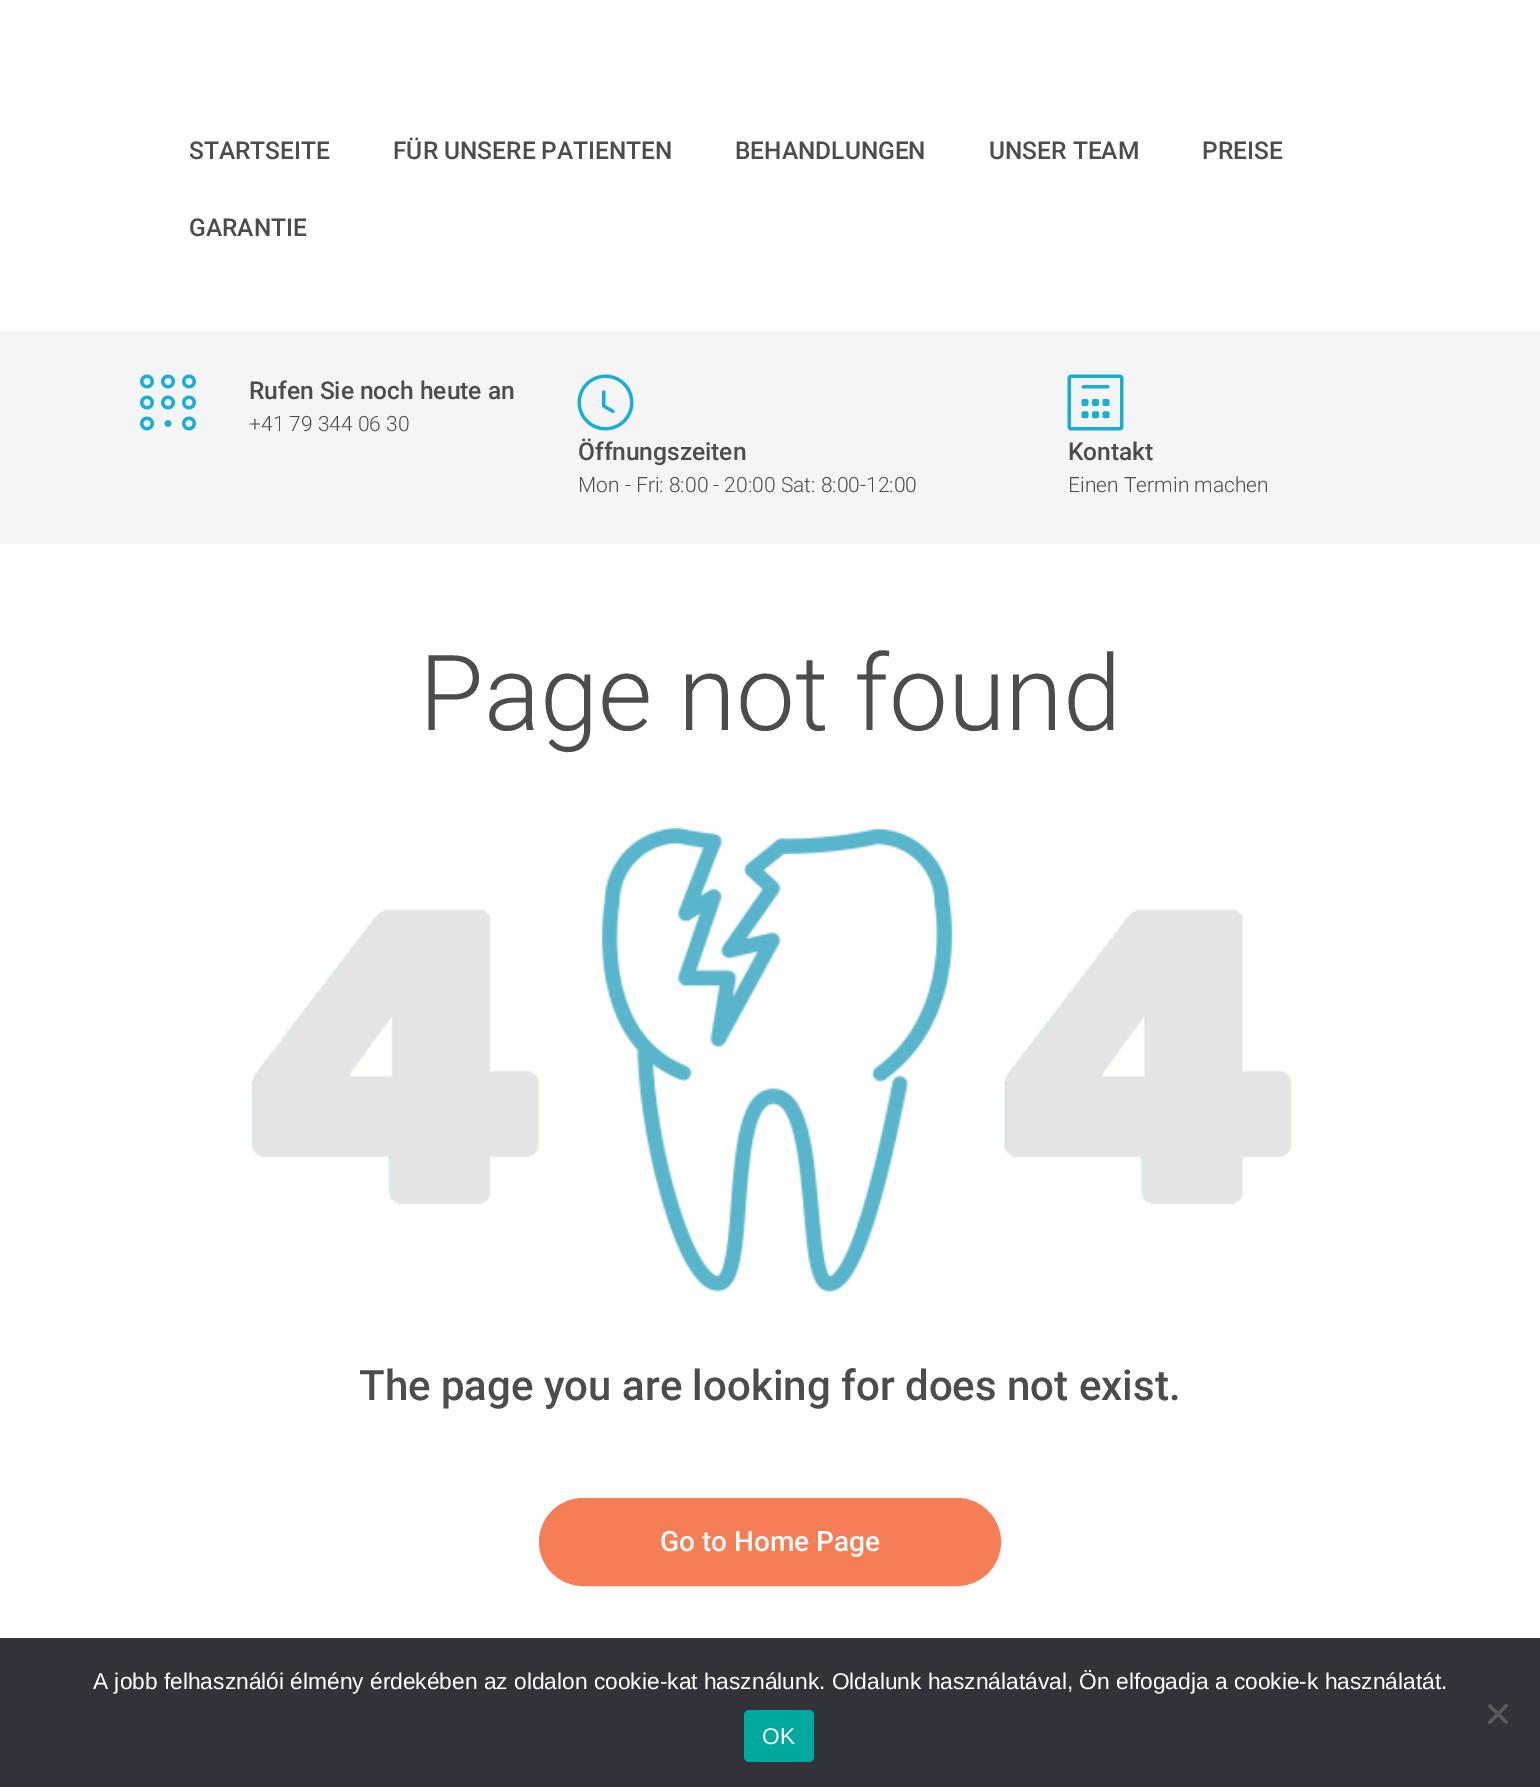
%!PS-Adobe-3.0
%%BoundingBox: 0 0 1540 1787
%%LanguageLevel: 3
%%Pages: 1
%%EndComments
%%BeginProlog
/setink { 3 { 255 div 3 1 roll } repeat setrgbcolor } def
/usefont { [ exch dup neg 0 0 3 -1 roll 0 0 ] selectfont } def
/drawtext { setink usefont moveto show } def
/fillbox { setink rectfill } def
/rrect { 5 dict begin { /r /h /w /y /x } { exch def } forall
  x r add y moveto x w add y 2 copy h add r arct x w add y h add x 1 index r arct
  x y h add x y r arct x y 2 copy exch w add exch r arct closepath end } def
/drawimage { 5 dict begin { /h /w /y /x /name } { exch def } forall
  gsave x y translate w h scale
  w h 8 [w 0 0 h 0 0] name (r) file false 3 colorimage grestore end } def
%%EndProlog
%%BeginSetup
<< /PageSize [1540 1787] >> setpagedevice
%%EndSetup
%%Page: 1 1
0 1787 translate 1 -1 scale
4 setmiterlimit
0 0 1540 1787 255 255 255 fillbox
(STARTSEITE) 189 159 /Roboto-Medium 24.5 76 76 76 drawtext
(FÜR UNSERE PATIENTEN) 393 159 /Roboto-Medium 24.5 76 76 76 drawtext
(BEHANDLUNGEN) 735 159 /Roboto-Medium 24.5 76 76 76 drawtext
(UNSER TEAM) 989 159 /Roboto-Medium 24.5 76 76 76 drawtext
(PREISE) 1202 159 /Roboto-Medium 24.5 76 76 76 drawtext
(GARANTIE) 189 236 /Roboto-Medium 24.5 76 76 76 drawtext
0 331 1540 213 245 245 245 fillbox
(assets/img1.rgb) 140 374 56 57 drawimage
(Rufen Sie noch heute an) 249 399 /Roboto-Medium 24.5 76 76 76 drawtext
(+41 79 344 06 30) 249 431 /Roboto-Light 21 76 76 76 drawtext
(assets/img2.rgb) 577 374 57 57 drawimage
(Öffnungszeiten) 578 460 /Roboto-Medium 24.5 76 76 76 drawtext
(Mon - Fri: 8:00 - 20:00 Sat: 8:00-12:00) 578 492 /Roboto-Light 21 76 76 76 drawtext
(assets/img3.rgb) 1067 374 57 57 drawimage
(Kontakt) 1068 460 /Roboto-Medium 24.5 76 76 76 drawtext
(Einen Termin machen) 1068 492 /Roboto-Light 21 76 76 76 drawtext
(Page not found) 419 730 /Roboto-Light 105 76 76 76 drawtext
(assets/img4.rgb) 251 827 1041 465 drawimage
(The page you are looking for does not exist.) 359 1400 /Roboto-Medium 42 76 76 76 drawtext
245 126 87 setink
542.5 1501.5 455 81 40.5 rrect gsave fill grestore
7 setlinewidth
stroke
(Go to Home Page) 660 1551 /Roboto-Medium 28 255 255 255 drawtext
0 1638 1540 149 50 50 58 fillbox
(A jobb felhasználói élmény érdekében az oldalon cookie-kat használunk. Oldalunk használatával, Ön elfogadja a cookie-k használatát.) 93 1689 /LiberationSans-Regular 22.75 255 255 255 drawtext
89 89 93 setink
1506 1703.5 moveto 1508.5 1706 lineto 1490 1724.5 lineto 1487.5 1722 lineto closepath fill
1487.5 1706 moveto 1490 1703.5 lineto 1508.5 1722 lineto 1506 1724.5 lineto closepath fill
0 169 157 setink
744 1710 70 52 5 rrect fill
(OK) 762 1744 /LiberationSans-Regular 22.75 255 255 255 drawtext
showpage
%%EOF
